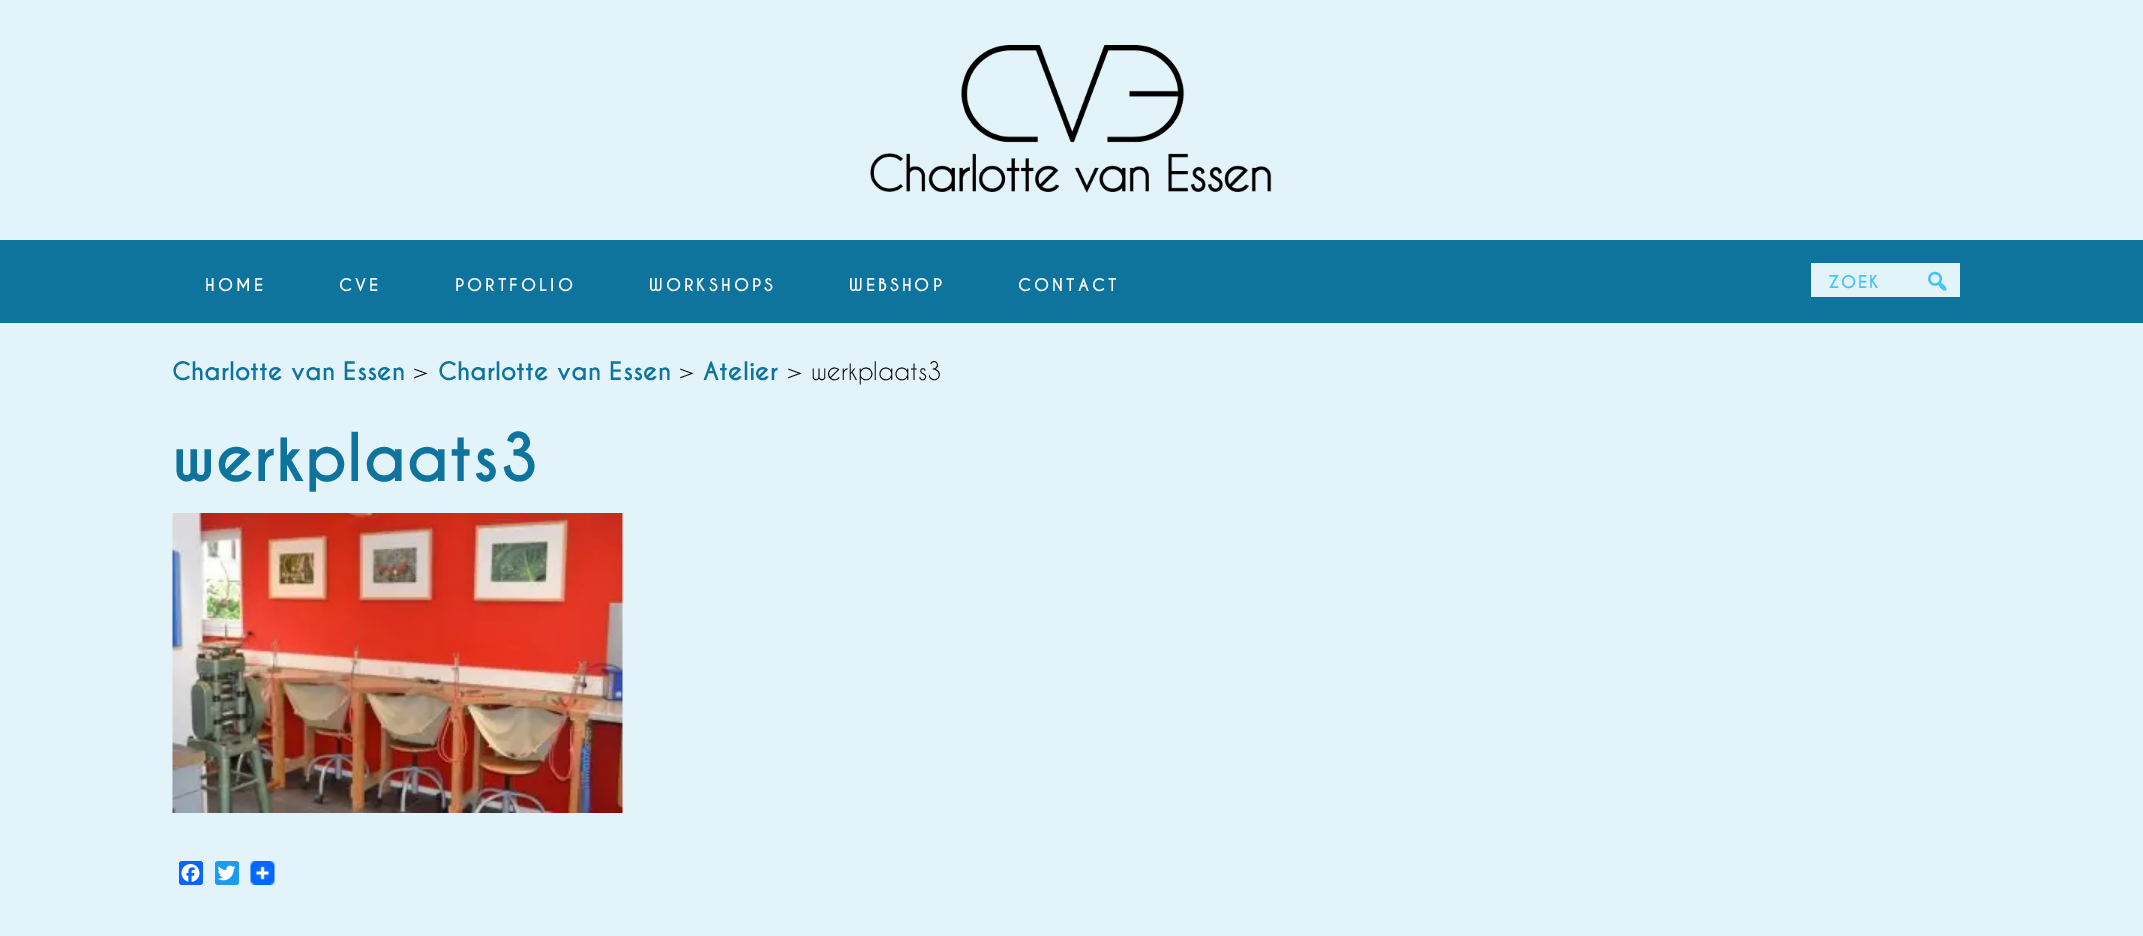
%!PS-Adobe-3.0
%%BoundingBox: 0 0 2143 936
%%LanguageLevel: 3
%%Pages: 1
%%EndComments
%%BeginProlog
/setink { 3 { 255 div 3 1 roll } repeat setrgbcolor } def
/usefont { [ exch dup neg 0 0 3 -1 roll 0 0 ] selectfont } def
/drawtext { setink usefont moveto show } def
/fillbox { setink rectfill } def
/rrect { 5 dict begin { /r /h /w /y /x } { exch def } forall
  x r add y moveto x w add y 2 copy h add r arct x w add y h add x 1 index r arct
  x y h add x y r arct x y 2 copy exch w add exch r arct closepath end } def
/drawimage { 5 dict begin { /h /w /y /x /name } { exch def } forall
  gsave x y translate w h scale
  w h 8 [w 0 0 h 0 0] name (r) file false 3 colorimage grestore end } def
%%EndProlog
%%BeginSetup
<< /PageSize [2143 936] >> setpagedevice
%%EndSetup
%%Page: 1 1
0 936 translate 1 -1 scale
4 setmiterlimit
0 0 2143 936 227 243 250 fillbox
(assets/img1.rgb) 870 45 402 148 drawimage
0 240 2143 83 14 115 157 fillbox
/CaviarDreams-Bold 16.5 usefont
255 255 255 setink
205 291 moveto 3 0 (HOME) ashow
339 291 moveto 3 0 (CVE) ashow
455 291 moveto 3 0 (PORTFOLIO) ashow
649 291 moveto 3 0 (WORKSHOPS) ashow
849 291 moveto 3 0 (WEBSHOP) ashow
1018 291 moveto 3 0 (CONTACT) ashow
1811 263 149 34 227 243 250 fillbox
66 195 249 setink
1828 288 moveto 1.5 0 (ZOEK) ashow
(assets/img2.rgb) 1928 271 19 20 drawimage
(Charlotte van Essen) 172 380 /CaviarDreams-Bold 24 14 115 157 drawtext
(>) 413 380 /CaviarDreams-Regular 24 0 0 0 drawtext
(Charlotte van Essen) 438 380 /CaviarDreams-Bold 24 14 115 157 drawtext
(>) 679 380 /CaviarDreams-Regular 24 0 0 0 drawtext
(Atelier) 703 380 /CaviarDreams-Bold 24 14 115 157 drawtext
(> werkplaats3) 787 380 /CaviarDreams-Regular 24 0 0 0 drawtext
(werkplaats3) 172 481 /CaviarDreams-Bold 63 14 115 157 drawtext
(assets/img3.rgb) 172 513 451 300 drawimage
8 102 255 setink
179 861 24 24 3 rrect fill
(assets/img4.rgb) 181 864 19 18 drawimage
29 155 240 setink
215 861 24 24 3 rrect fill
(assets/img5.rgb) 217 865 19 16 drawimage
(assets/img6.rgb) 250 861 25 24 drawimage
showpage
%%EOF
